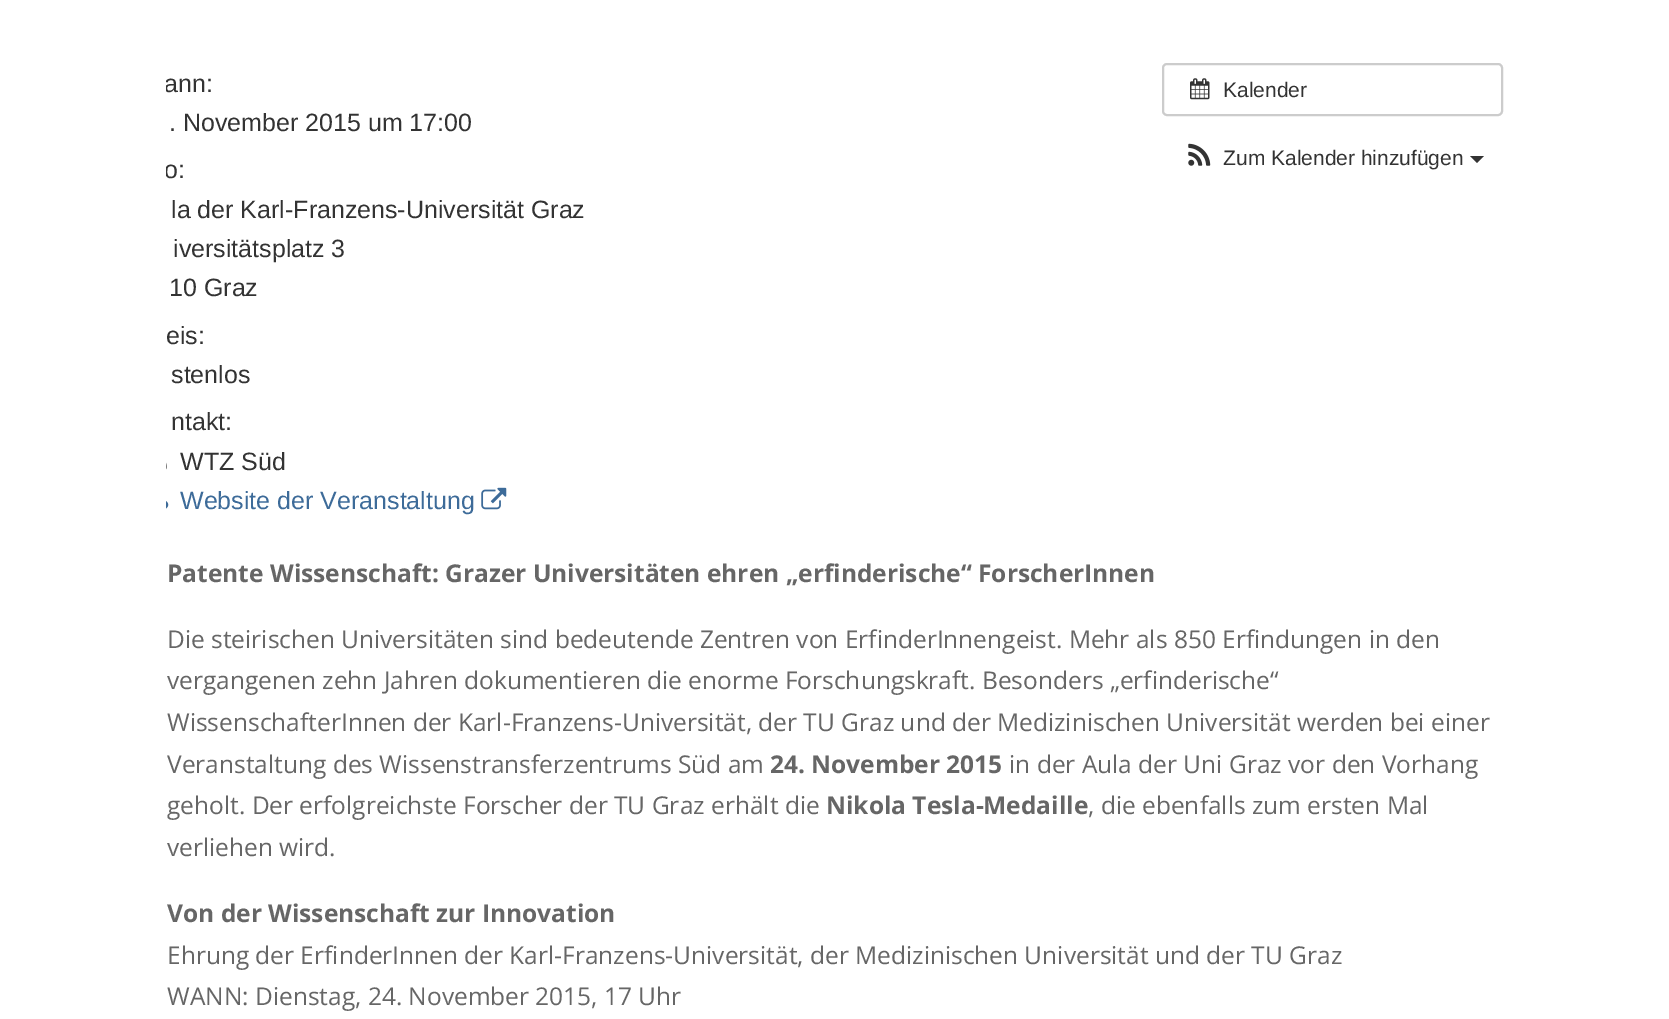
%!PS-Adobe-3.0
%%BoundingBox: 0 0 1669 1019
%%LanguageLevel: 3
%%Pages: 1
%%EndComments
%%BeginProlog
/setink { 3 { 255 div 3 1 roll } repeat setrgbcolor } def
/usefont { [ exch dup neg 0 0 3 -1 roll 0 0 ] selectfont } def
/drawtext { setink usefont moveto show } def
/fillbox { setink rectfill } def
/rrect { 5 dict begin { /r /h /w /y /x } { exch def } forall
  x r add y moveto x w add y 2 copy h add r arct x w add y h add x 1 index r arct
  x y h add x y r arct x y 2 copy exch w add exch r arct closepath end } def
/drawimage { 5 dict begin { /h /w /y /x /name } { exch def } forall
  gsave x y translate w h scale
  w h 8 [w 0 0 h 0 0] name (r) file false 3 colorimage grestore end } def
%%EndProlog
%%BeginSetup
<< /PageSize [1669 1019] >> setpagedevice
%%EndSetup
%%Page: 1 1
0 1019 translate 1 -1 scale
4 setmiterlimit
0 0 1669 1019 255 255 255 fillbox
gsave
166 63 979 466 rectclip
(ann:) 164 92 /LiberationSans-Regular 25 51 51 51 drawtext
grestore
(. November 2015 um 17:00) 169 131 /LiberationSans-Regular 25 51 51 51 drawtext
gsave
166 63 979 466 rectclip
(o:) 164 178 /LiberationSans-Regular 25 51 51 51 drawtext
grestore
(la der Karl-Franzens-Universität Graz) 171 218 /LiberationSans-Regular 25 51 51 51 drawtext
(iversitätsplatz 3) 173 257 /LiberationSans-Regular 25 51 51 51 drawtext
(10 Graz) 169 296 /LiberationSans-Regular 25 51 51 51 drawtext
(eis:) 166 344 /LiberationSans-Regular 25 51 51 51 drawtext
(stenlos) 171 383 /LiberationSans-Regular 25 51 51 51 drawtext
(ntakt:) 171 430 /LiberationSans-Regular 25 51 51 51 drawtext
(assets/img1.rgb) 166 462 1 8 drawimage
(WTZ Süd) 180 470 /LiberationSans-Regular 25 51 51 51 drawtext
(assets/img2.rgb) 166 501 3 8 drawimage
(Website der Veranstaltung) 180 509 /LiberationSans-Regular 25 61 107 153 drawtext
(assets/img3.rgb) 481 487 26 23 drawimage
204 204 204 setink
2 setlinewidth
1163 64 339 51 4 rrect stroke
(assets/img4.rgb) 1190 78 20 22 drawimage
(Kalender) 1223 97 /LiberationSans-Regular 21 51 51 51 drawtext
(assets/img5.rgb) 1188 143 23 23 drawimage
(Zum Kalender hinzufügen) 1223 165 /LiberationSans-Regular 21 51 51 51 drawtext
1470 156 moveto 1484 156 lineto 1477 163 lineto closepath fill
(Patente Wissenschaft: Grazer Universitäten ehren „erfinderische“ ForscherInnen) 167 582 /OpenSans-Bold 24.5 102 102 102 drawtext
(Die steirischen Universitäten sind bedeutende Zentren von ErfinderInnengeist. Mehr als 850 Erfindungen in den) 167 648 /OpenSans-Regular 24.5 102 102 102 drawtext
(vergangenen zehn Jahren dokumentieren die enorme Forschungskraft. Besonders „erfinderische“) 167 689 /OpenSans-Regular 24.5 102 102 102 drawtext
(WissenschafterInnen der Karl-Franzens-Universität, der TU Graz und der Medizinischen Universität werden bei einer) 167 731 /OpenSans-Regular 24.5 102 102 102 drawtext
(Veranstaltung des Wissenstransferzentrums Süd am) 167 773 /OpenSans-Regular 24.5 102 102 102 drawtext
(24. November 2015) 770 773 /OpenSans-Bold 24.5 102 102 102 drawtext
(in der Aula der Uni Graz vor den Vorhang) 1009 773 /OpenSans-Regular 24.5 102 102 102 drawtext
(geholt. Der erfolgreichste Forscher der TU Graz erhält die) 167 814 /OpenSans-Regular 24.5 102 102 102 drawtext
(Nikola Tesla-Medaille) 826 814 /OpenSans-Bold 24.5 102 102 102 drawtext
(, die ebenfalls zum ersten Mal) 1088 814 /OpenSans-Regular 24.5 102 102 102 drawtext
(verliehen wird.) 167 856 /OpenSans-Regular 24.5 102 102 102 drawtext
(Von der Wissenschaft zur Innovation) 167 922 /OpenSans-Bold 24.5 102 102 102 drawtext
(Ehrung der ErfinderInnen der Karl-Franzens-Universität, der Medizinischen Universität und der TU Graz) 167 964 /OpenSans-Regular 24.5 102 102 102 drawtext
(WANN: Dienstag, 24. November 2015, 17 Uhr) 167 1005 /OpenSans-Regular 24.5 102 102 102 drawtext
showpage
%%EOF
